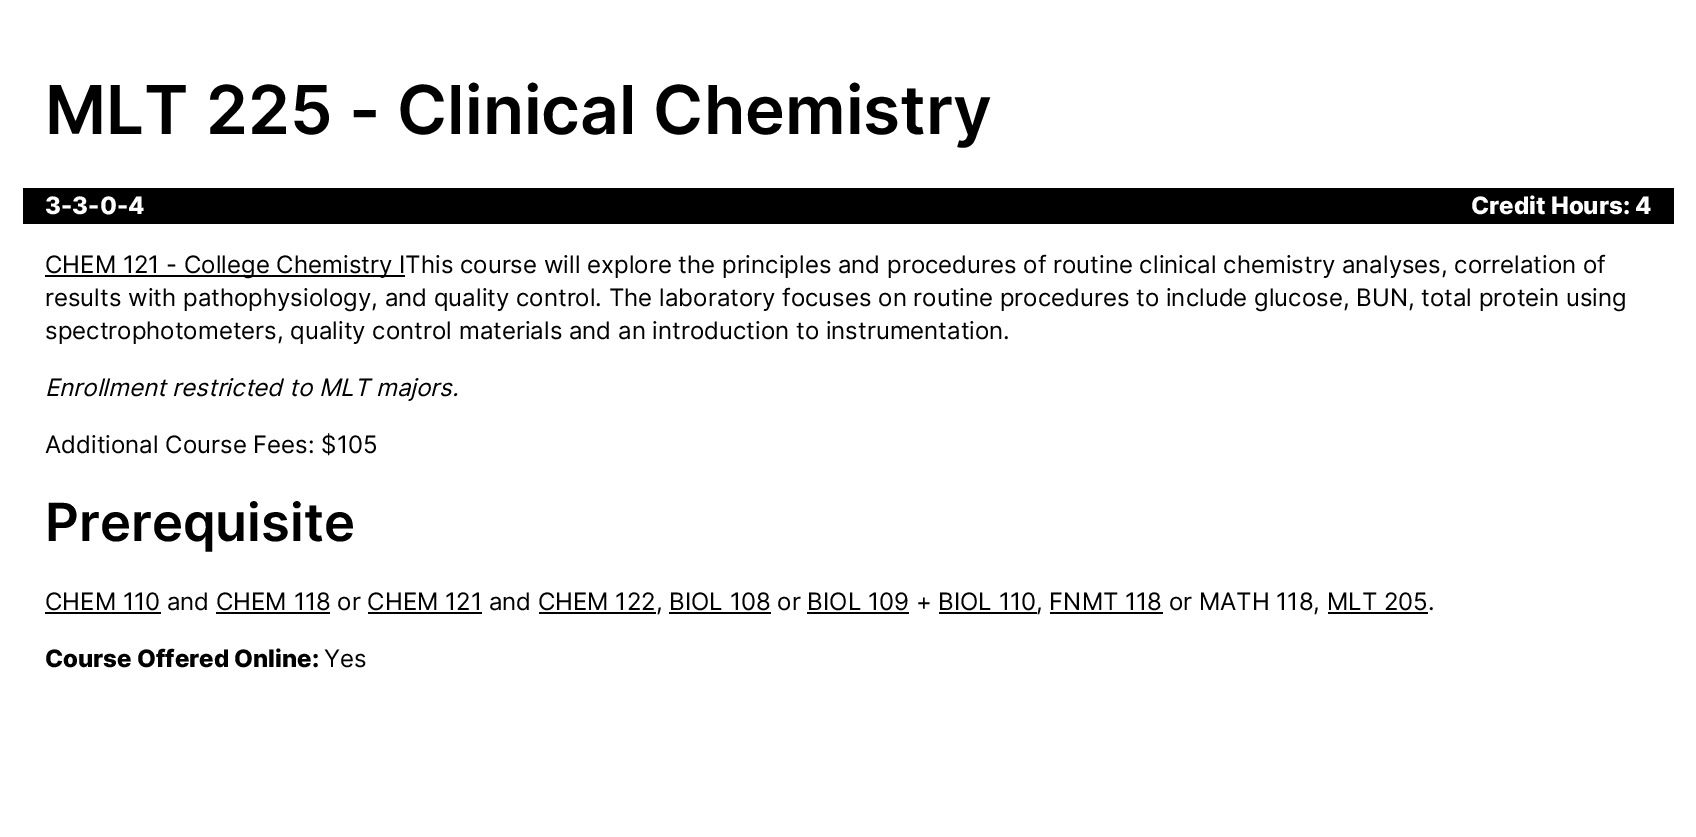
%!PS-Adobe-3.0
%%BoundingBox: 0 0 1696 837
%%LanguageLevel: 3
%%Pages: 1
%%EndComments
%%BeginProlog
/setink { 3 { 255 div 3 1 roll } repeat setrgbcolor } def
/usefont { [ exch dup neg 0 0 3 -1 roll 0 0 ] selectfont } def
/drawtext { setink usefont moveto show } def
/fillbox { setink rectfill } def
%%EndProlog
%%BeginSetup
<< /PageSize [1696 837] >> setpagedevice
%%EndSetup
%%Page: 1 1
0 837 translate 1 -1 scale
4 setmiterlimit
0 0 1696 837 255 255 255 fillbox
(MLT 225 - Clinical Chemistry) 45 134 /Inter-SemiBold 67.5 0 0 0 drawtext
23 188 1651 36 0 0 0 fillbox
(3-3-0-4) 45 214 /Inter-ExtraBold 24 255 255 255 drawtext
(Credit Hours: 4) 1471 214 /Inter-ExtraBold 24 255 255 255 drawtext
45 275 360 2 0 0 0 fillbox
(CHEM 121 - College Chemistry IThis course will explore the principles and procedures of routine clinical chemistry analyses, correlation of) 45 273 /Inter-Regular 24 0 0 0 drawtext
(results with pathophysiology, and quality control. The laboratory focuses on routine procedures to include glucose, BUN, total protein using) 45 306 /Inter-Regular 24 0 0 0 drawtext
(spectrophotometers, quality control materials and an introduction to instrumentation.) 45 339 /Inter-Regular 24 0 0 0 drawtext
(Enrollment restricted to MLT majors.) 45 396 /Inter-Italic 24 0 0 0 drawtext
(Additional Course Fees: $105) 45 453 /Inter-Regular 24 0 0 0 drawtext
(Prerequisite) 45 541 /Inter-SemiBold 52.5 0 0 0 drawtext
45 612 116 2 0 0 0 fillbox
(CHEM 110 and CHEM 118 or CHEM 121 and CHEM 122, BIOL 108 or BIOL 109 + BIOL 110, FNMT 118 or MATH 118, MLT 205.) 45 610 /Inter-Regular 24 0 0 0 drawtext
216 612 114 2 0 0 0 fillbox
368 612 114 2 0 0 0 fillbox
539 612 117 2 0 0 0 fillbox
669 612 102 2 0 0 0 fillbox
807 612 102 2 0 0 0 fillbox
939 612 98 2 0 0 0 fillbox
1050 612 113 2 0 0 0 fillbox
1328 612 100 2 0 0 0 fillbox
(Course Offered Online:) 45 667 /Inter-ExtraBold 24 0 0 0 drawtext
(Yes) 324 667 /Inter-Regular 24 0 0 0 drawtext
showpage
%%EOF
